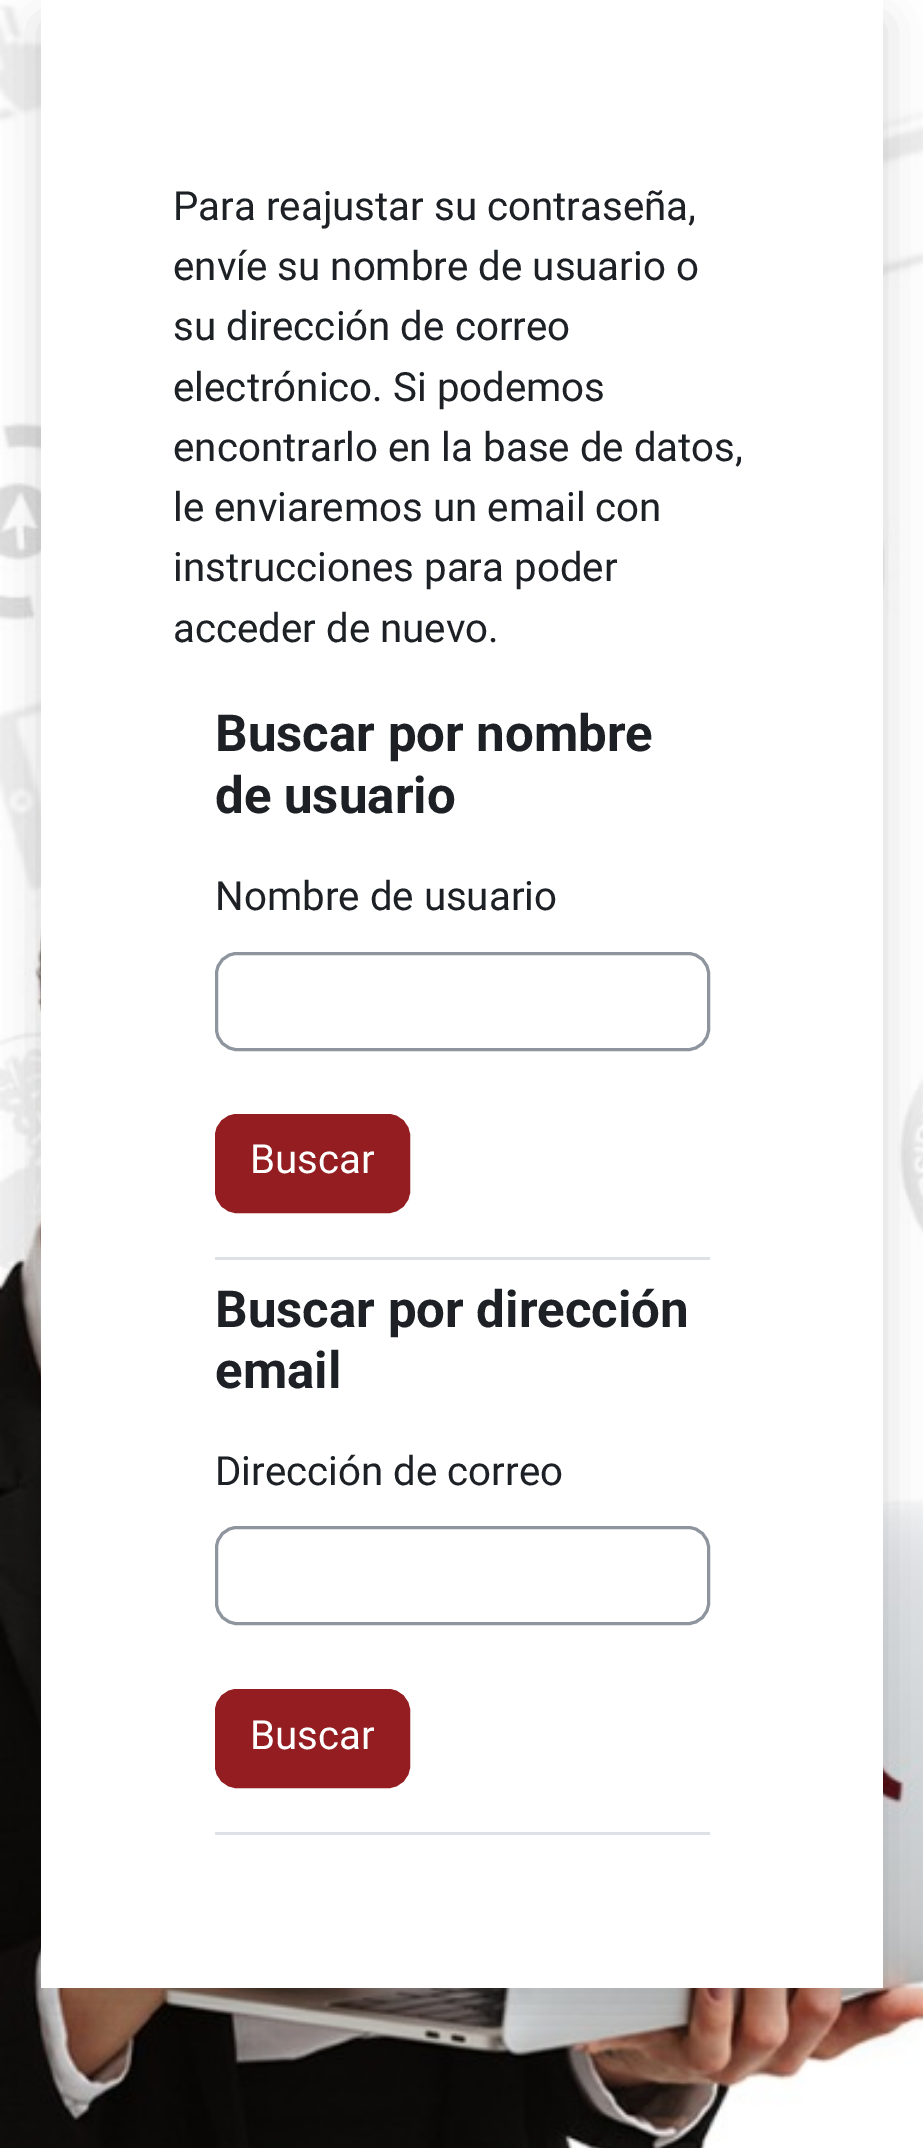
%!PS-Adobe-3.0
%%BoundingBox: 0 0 923 2148
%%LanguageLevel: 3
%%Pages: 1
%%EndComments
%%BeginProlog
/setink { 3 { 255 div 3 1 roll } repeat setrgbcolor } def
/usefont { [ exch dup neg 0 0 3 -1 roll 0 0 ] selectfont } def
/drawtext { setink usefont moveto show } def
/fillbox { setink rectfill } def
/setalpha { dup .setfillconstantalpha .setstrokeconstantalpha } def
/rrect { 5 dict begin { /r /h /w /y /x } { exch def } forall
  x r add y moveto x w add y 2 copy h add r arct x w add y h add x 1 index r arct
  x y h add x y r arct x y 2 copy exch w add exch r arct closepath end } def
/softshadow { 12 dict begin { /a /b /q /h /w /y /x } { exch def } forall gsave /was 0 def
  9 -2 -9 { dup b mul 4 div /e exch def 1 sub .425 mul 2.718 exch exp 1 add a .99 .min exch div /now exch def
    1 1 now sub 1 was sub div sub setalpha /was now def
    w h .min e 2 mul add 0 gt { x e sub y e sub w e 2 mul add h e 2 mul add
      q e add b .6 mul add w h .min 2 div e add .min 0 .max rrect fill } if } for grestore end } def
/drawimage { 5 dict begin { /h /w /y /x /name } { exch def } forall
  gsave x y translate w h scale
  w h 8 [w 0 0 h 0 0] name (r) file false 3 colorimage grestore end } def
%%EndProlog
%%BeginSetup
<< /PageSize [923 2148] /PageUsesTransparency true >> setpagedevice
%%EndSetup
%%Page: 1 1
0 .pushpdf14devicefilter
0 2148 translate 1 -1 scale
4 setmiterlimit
0 0 923 2148 255 255 255 fillbox
(assets/img1.rgb) 0 0 923 2148 drawimage
0 0 0 setink
41 22 842 1988 0 22 0.15 softshadow
41 0 842 1988 255 255 255 fillbox
(Para reajustar su contraseña,) 173 220 /Roboto-Regular 40.25 29 33 37 drawtext
(envíe su nombre de usuario o) 173 280 /Roboto-Regular 40.25 29 33 37 drawtext
(su dirección de correo) 173 340 /Roboto-Regular 40.25 29 33 37 drawtext
(electrónico. Si podemos) 173 401 /Roboto-Regular 40.25 29 33 37 drawtext
(encontrarlo en la base de datos,) 173 461 /Roboto-Regular 40.25 29 33 37 drawtext
(le enviaremos un email con) 173 521 /Roboto-Regular 40.25 29 33 37 drawtext
(instrucciones para poder) 173 581 /Roboto-Regular 40.25 29 33 37 drawtext
(acceder de nuevo.) 173 642 /Roboto-Regular 40.25 29 33 37 drawtext
215 1257 495 3 222 226 230 fillbox
(Buscar por nombre) 215 751 /Roboto-Bold 51 29 33 37 drawtext
(de usuario) 215 813 /Roboto-Bold 51 29 33 37 drawtext
(Nombre de usuario) 215 910 /Roboto-Regular 40.25 29 33 37 drawtext
143 149 158 setink
3 setlinewidth
216.5 953.5 492 96 20.5 rrect stroke
147 29 33 setink
216.5 1115.5 192 96 20.5 rrect gsave fill grestore
stroke
(Buscar) 250 1173 /Roboto-Regular 40.25 255 255 255 drawtext
215 1832 495 3 222 226 230 fillbox
(Buscar por dirección) 215 1327 /Roboto-Bold 51 29 33 37 drawtext
(email) 215 1388 /Roboto-Bold 51 29 33 37 drawtext
(Dirección de correo) 215 1485 /Roboto-Regular 40.25 29 33 37 drawtext
143 149 158 setink
216.5 1527.5 492 96 20.5 rrect stroke
147 29 33 setink
216.5 1690.5 192 96 20.5 rrect gsave fill grestore
stroke
(Buscar) 250 1749 /Roboto-Regular 40.25 255 255 255 drawtext
.poppdf14devicefilter showpage
%%EOF
